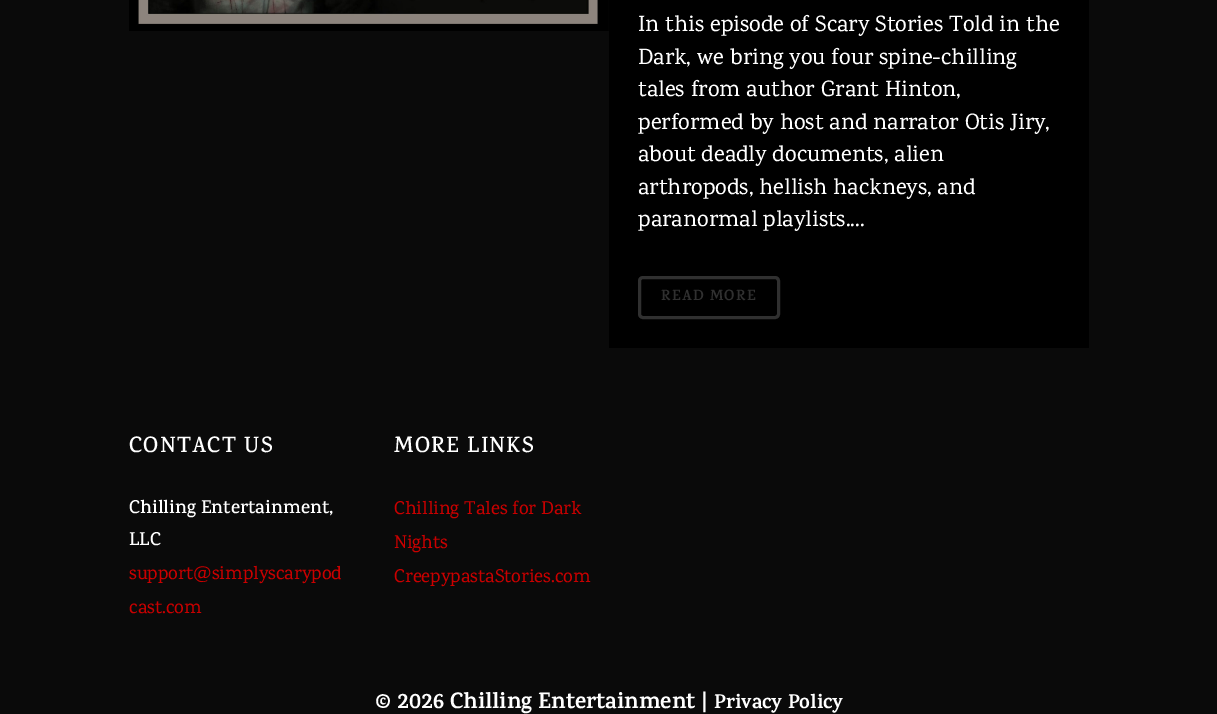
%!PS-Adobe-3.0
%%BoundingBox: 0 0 1217 714
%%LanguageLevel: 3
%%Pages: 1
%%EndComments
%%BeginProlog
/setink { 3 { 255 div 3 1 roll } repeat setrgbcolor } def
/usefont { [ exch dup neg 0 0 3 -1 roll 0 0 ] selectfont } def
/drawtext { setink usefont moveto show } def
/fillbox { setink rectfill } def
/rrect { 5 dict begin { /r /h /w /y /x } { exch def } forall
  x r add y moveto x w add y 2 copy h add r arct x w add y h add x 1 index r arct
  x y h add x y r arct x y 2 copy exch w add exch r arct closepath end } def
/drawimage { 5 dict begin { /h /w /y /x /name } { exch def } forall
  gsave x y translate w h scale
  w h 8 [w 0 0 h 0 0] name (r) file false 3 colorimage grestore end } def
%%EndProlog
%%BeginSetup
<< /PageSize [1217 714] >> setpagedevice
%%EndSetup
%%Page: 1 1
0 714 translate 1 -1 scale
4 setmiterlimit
0 0 1217 714 10 10 10 fillbox
(assets/img1.rgb) 129 0 480 31 drawimage
609 0 480 348 0 0 0 fillbox
(In this episode of Scary Stories Told in the) 638 31 /Karma-Medium 22.5 255 255 255 drawtext
(Dark, we bring you four spine-chilling) 638 64 /Karma-Medium 22.5 255 255 255 drawtext
(tales from author Grant Hinton,) 638 96 /Karma-Medium 22.5 255 255 255 drawtext
(performed by host and narrator Otis Jiry,) 638 129 /Karma-Medium 22.5 255 255 255 drawtext
(about deadly documents, alien) 638 161 /Karma-Medium 22.5 255 255 255 drawtext
(arthropods, hellish hackneys, and) 638 194 /Karma-Medium 22.5 255 255 255 drawtext
(paranormal playlists....) 638 226 /Karma-Medium 22.5 255 255 255 drawtext
48 48 48 setink
3 setlinewidth
639.5 277.5 139 40 3.5 rrect stroke
/Karma-Bold 15 usefont
661 300 moveto 1.25 0 (READ MORE) ashow
/Karma-SemiBold 22.5 usefont
255 255 255 setink
129 452 moveto 1.25 0 (CONTACT US) ashow
(Chilling Entertainment,) 129 513 /Karma-SemiBold 18.75 255 255 255 drawtext
(LLC) 129 545 /Karma-SemiBold 18.75 255 255 255 drawtext
(support@simplyscarypod) 129 579 /Karma-Medium 18.75 201 0 0 drawtext
(cast.com) 129 613 /Karma-Medium 18.75 201 0 0 drawtext
/Karma-SemiBold 22.5 usefont
255 255 255 setink
394 452 moveto 1.25 0 (MORE LINKS) ashow
(Chilling Tales for Dark) 394 514 /Karma-Medium 18.75 201 0 0 drawtext
(Nights) 394 548 /Karma-Medium 18.75 201 0 0 drawtext
(CreepypastaStories.com) 394 582 /Karma-Medium 18.75 201 0 0 drawtext
(© 2026 Chilling Entertainment |) 375 708 /Karma-Bold 22.5 255 255 255 drawtext
(Privacy Policy) 714 708 /Karma-Bold 20 255 255 255 drawtext
showpage
%%EOF
